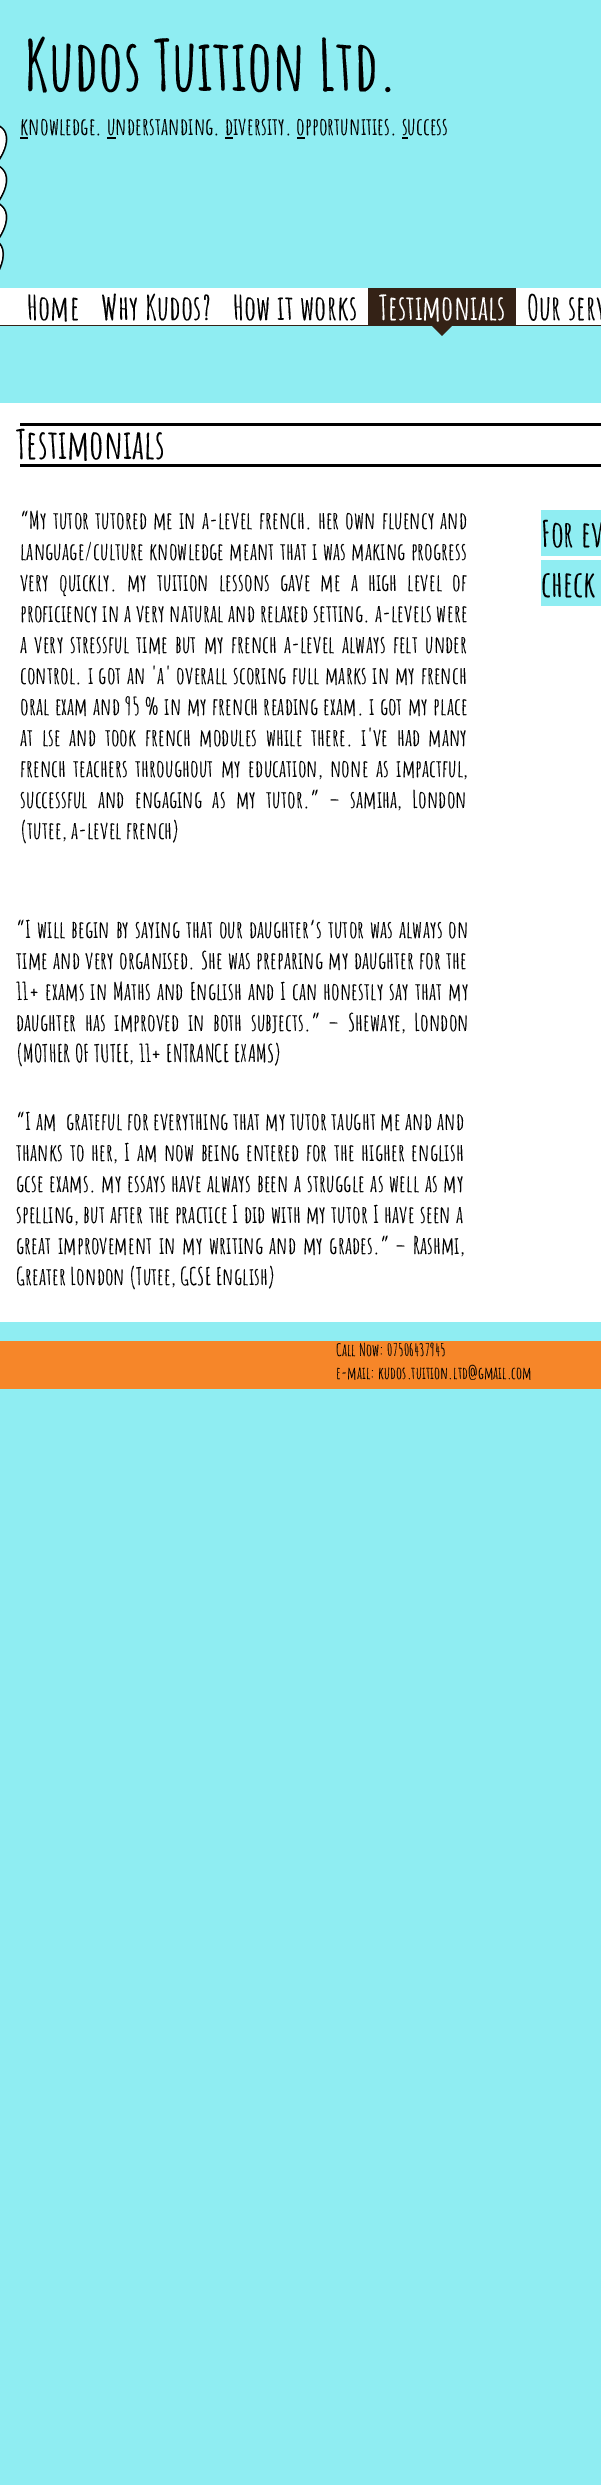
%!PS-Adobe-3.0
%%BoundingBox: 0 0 601 2485
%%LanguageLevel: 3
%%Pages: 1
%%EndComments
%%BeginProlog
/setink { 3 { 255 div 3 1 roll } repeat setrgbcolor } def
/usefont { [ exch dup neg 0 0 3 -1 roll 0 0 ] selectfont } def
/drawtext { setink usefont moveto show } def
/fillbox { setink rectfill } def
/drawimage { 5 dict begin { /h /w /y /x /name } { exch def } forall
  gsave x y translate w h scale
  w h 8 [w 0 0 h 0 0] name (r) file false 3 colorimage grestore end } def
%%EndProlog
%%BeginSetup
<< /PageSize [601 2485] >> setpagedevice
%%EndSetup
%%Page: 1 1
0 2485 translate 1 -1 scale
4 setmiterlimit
0 0 601 2485 143 237 242 fillbox
(Kudos Tuition Ltd.) 24 91 /AmaticSC-Bold 70 0 0 0 drawtext
(assets/img1.rgb) 0 125 8 145 drawimage
(knowledge. understanding. diversity. opportunities. success) 20 135 /AmaticSC-Bold 24 0 0 0 drawtext
20 137 8 2 0 0 0 fillbox
107 137 9 2 0 0 0 fillbox
225 137 8 2 0 0 0 fillbox
297 137 8 2 0 0 0 fillbox
402 137 6 2 0 0 0 fillbox
0 288 601 37 255 255 255 fillbox
0 325 601 1 52 34 22 fillbox
(Home) 27 320 /AmaticSC-Bold 34 0 0 0 drawtext
(Why Kudos?) 101 320 /AmaticSC-Bold 34 0 0 0 drawtext
(How it works) 233 320 /AmaticSC-Bold 34 0 0 0 drawtext
368 288 148 37 52 34 22 fillbox
(Testimonials) 379 320 /AmaticSC-Bold 34 255 255 255 drawtext
52 34 22 setink
431 325 moveto 453 325 lineto 442 336 lineto closepath fill
(Our serv) 527 320 /AmaticSC-Bold 34 0 0 0 drawtext
0 403 601 919 255 255 255 fillbox
20 423 581 3 0 0 0 fillbox
(Testimonials) 16 459 /AmaticSC-Bold 40 0 0 0 drawtext
20 464 581 3 0 0 0 fillbox
/AmaticSC-Bold 24 usefont
20 529 moveto 1.5 0 32 (“My tutor tutored me in a-level french. her own fluency and) widthshow
20 560 moveto 0.75 0 32 (language/culture knowledge meant that i was making progress) widthshow
20 591 moveto 5.5 0 32 (very quickly. my tuition lessons gave me a high level of) widthshow
20 622 moveto 0.25 0 32 (proficiency in a very natural and relaxed setting. a-levels were) widthshow
20 653 moveto 2.6 0 32 (a very stressful time but my french a-level always felt under) widthshow
20 684 moveto 1.1 0 32 (control. i got an 'a' overall scoring full marks in my french) widthshow
20 715 moveto 0.9 0 32 (oral exam and 95 % in my french reading exam. i got my place) widthshow
20 746 moveto 4 0 32 (at lse and took french modules while there. i've had many) widthshow
20 777 moveto 3 0 32 (french teachers throughout my education, none as impactful,) widthshow
20 808 moveto 5.75 0 32 (successful and engaging as my tutor.” – samiha, London) widthshow
(\(tutee, a-level french\)) 20 839 /AmaticSC-Bold 24 0 0 0 drawtext
541 510 60 46 143 237 242 fillbox
(For ev) 541 547 /AmaticSC-Bold 36 0 0 0 drawtext
541 560 60 46 143 237 242 fillbox
(check) 541 597 /AmaticSC-Bold 36 0 0 0 drawtext
/AmaticSC-Bold 24 usefont
16 938 moveto 1.25 0 32 (“I will begin by saying that our daughter’s tutor was always on) widthshow
16 969 moveto 0.75 0 32 (time and very organised. She was preparing my daughter for the) widthshow
16 1000 moveto 1.4 0 32 (11+ exams in Maths and English and I can honestly say that my) widthshow
16 1031 moveto 4 0 32 (daughter has improved in both subjects.” – Shewaye, London) widthshow
(\(MOTHER OF TUTEE, 11+ ENTRANCE EXAMS\)) 16 1062 /AmaticSC-Bold 24 0 0 0 drawtext
16 1130 moveto 0.25 0 32 (“I am  grateful for everything that my tutor taught me and and) widthshow
16 1161 moveto 2.1 0 32 (thanks to her, I am now being entered for the higher english) widthshow
16 1192 moveto 1.25 0 32 (gcse exams. my essays have always been a struggle as well as my) widthshow
16 1223 moveto 0.75 0 32 (spelling, but after the practice I did with my tutor I have seen a) widthshow
16 1254 moveto 2 0 32 (great improvement in my writing and my grades.” – Rashmi,) widthshow
(Greater London \(Tutee, GCSE English\)) 16 1285 /AmaticSC-Bold 24 0 0 0 drawtext
0 1341 601 48 246 134 41 fillbox
(Call Now: 07506437945) 336 1356 /AmaticSC-Bold 17 0 0 0 drawtext
(e-mail: kudos.tuition.ltd@gmail.com) 336 1379 /AmaticSC-Bold 17 0 0 0 drawtext
showpage
%%EOF
